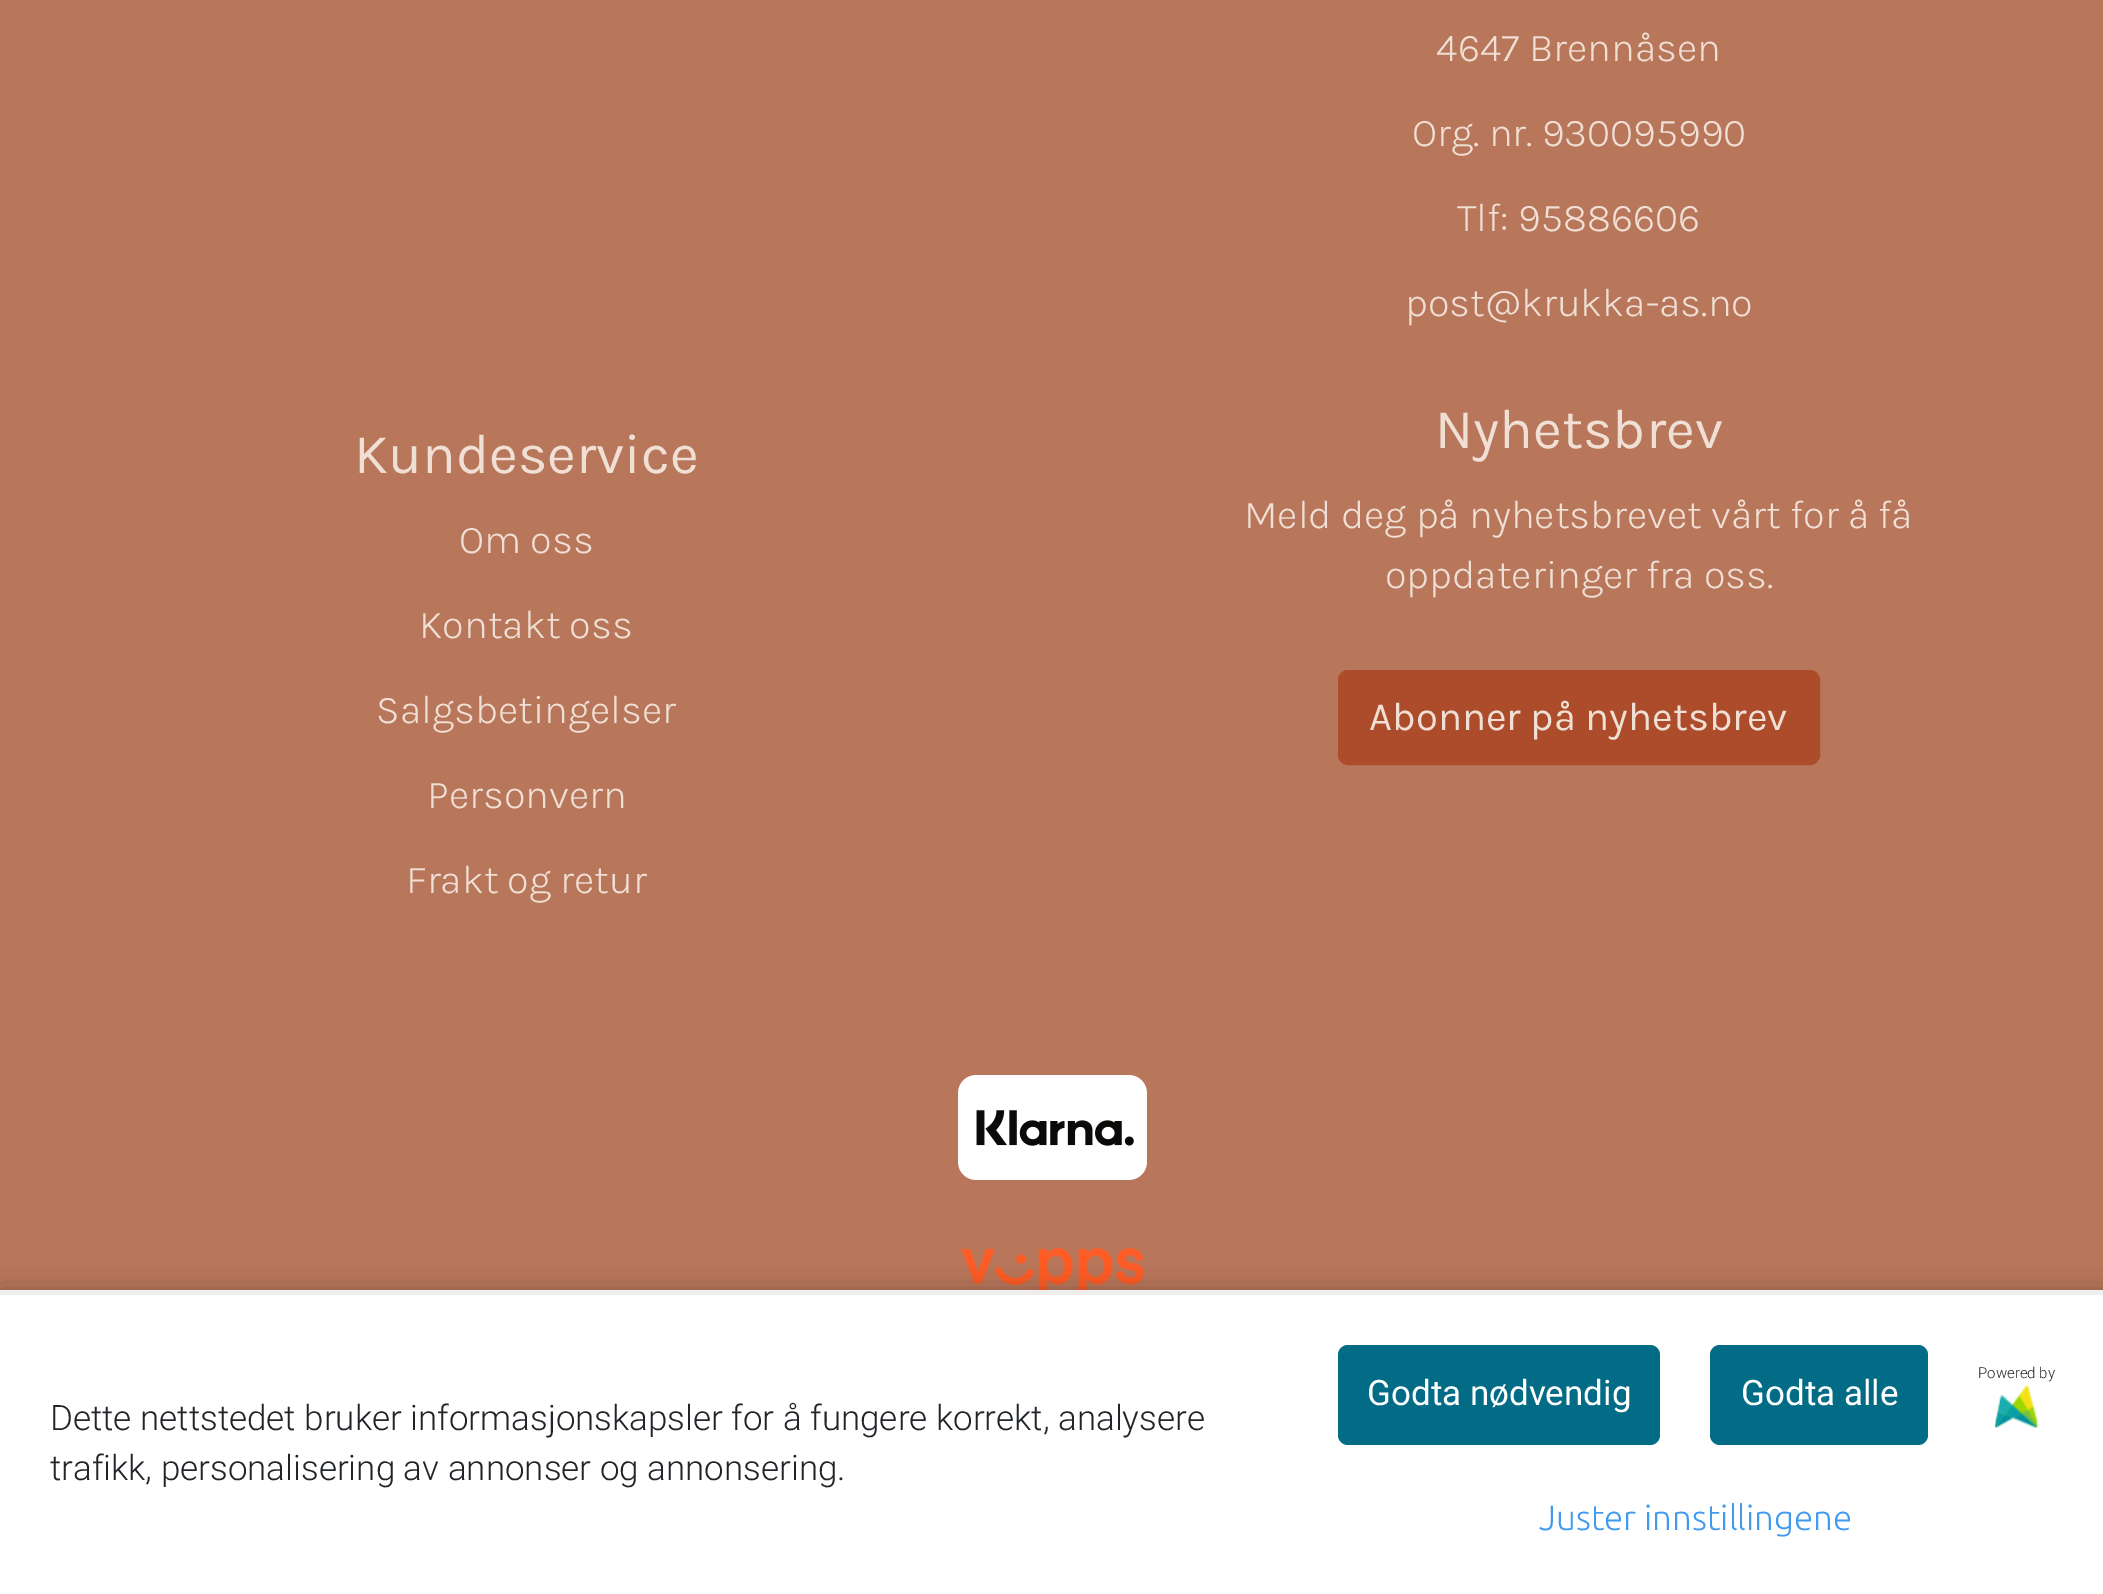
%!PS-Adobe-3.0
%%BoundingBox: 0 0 2103 1594
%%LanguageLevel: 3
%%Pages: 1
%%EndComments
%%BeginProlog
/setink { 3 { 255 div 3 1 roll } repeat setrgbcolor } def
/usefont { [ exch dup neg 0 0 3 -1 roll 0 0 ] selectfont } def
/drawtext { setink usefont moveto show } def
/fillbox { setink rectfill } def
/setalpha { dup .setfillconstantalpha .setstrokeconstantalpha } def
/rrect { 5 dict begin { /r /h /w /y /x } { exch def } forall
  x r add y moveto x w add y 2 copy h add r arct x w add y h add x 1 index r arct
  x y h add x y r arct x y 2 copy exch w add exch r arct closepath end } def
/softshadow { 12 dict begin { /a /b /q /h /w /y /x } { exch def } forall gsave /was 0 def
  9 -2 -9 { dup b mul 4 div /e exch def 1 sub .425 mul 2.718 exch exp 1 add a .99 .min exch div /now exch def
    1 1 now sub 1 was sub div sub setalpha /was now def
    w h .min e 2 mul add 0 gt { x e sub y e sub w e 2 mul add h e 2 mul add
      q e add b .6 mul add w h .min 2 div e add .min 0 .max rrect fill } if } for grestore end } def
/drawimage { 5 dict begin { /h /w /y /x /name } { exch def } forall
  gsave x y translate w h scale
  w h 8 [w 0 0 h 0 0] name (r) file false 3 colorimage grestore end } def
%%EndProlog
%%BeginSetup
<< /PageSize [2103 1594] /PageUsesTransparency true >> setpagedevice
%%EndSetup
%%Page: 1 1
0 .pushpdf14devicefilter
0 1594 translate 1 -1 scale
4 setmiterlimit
0 0 2103 1594 184 118 91 fillbox
(4647 Brennåsen) 1436 61 /Karla-Light 40 240 223 213 drawtext
(Org. nr. 930095990) 1412 146 /Karla-Light 40 240 223 213 drawtext
(Tlf: 95886606) 1457 231 /Karla-Light 40 240 223 213 drawtext
(post@krukka-as.no) 1405 316 /Karla-Light 40 240 223 213 drawtext
(Kundeservice) 354 473 /Karla-Regular 56 240 223 213 drawtext
(Om oss) 459 553 /Karla-Light 40 240 223 213 drawtext
(Kontakt oss) 419 638 /Karla-Light 40 240 223 213 drawtext
(Salgsbetingelser) 376 723 /Karla-Light 40 240 223 213 drawtext
(Personvern) 427 808 /Karla-Light 40 240 223 213 drawtext
(Frakt og retur) 406 893 /Karla-Light 40 240 223 213 drawtext
(Nyhetsbrev) 1435 448 /Karla-Regular 56 240 223 213 drawtext
(Meld deg på nyhetsbrevet vårt for å få) 1244 528 /Karla-Light 40 240 223 213 drawtext
(oppdateringer fra oss.) 1385 588 /Karla-Light 40 240 223 213 drawtext
173 76 42 setink
1339.5 671.5 479 92 8.5 rrect gsave fill grestore
3 setlinewidth
stroke
(Abonner på nyhetsbrev) 1369 730 /Karla-Regular 40 240 223 213 drawtext
(assets/img1.rgb) 958 1075 189 105 drawimage
(assets/img2.rgb) 960 1247 184 43 drawimage
0 0 0 setink
0 1290 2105 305 0 12.5 0.25 softshadow
0 1295 2103 299 255 255 255 fillbox
0 1290 2103 5 238 238 238 fillbox
(Dette nettstedet bruker informasjonskapsler for å fungere korrekt, analysere) 50 1430 /Roboto-Light 35 33 37 41 drawtext
(trafikk, personalisering av annonser og annonsering.) 50 1480 /Roboto-Light 35 33 37 41 drawtext
(Powered by) 1978 1378 /Roboto-Light 15 33 37 41 drawtext
(assets/img3.rgb) 1995 1385 43 43 drawimage
2 107 133 setink
1338 1345 322 100 10 rrect fill
(Godta nødvendig) 1367 1405 /Roboto-Regular 35 255 255 255 drawtext
2 107 133 setink
1710 1345 218 100 10 rrect fill
(Godta alle) 1741 1405 /Roboto-Regular 35 255 255 255 drawtext
(Juster innstillingene) 1539 1530 /Ubuntu-Light 35 64 154 239 drawtext
.poppdf14devicefilter showpage
%%EOF
